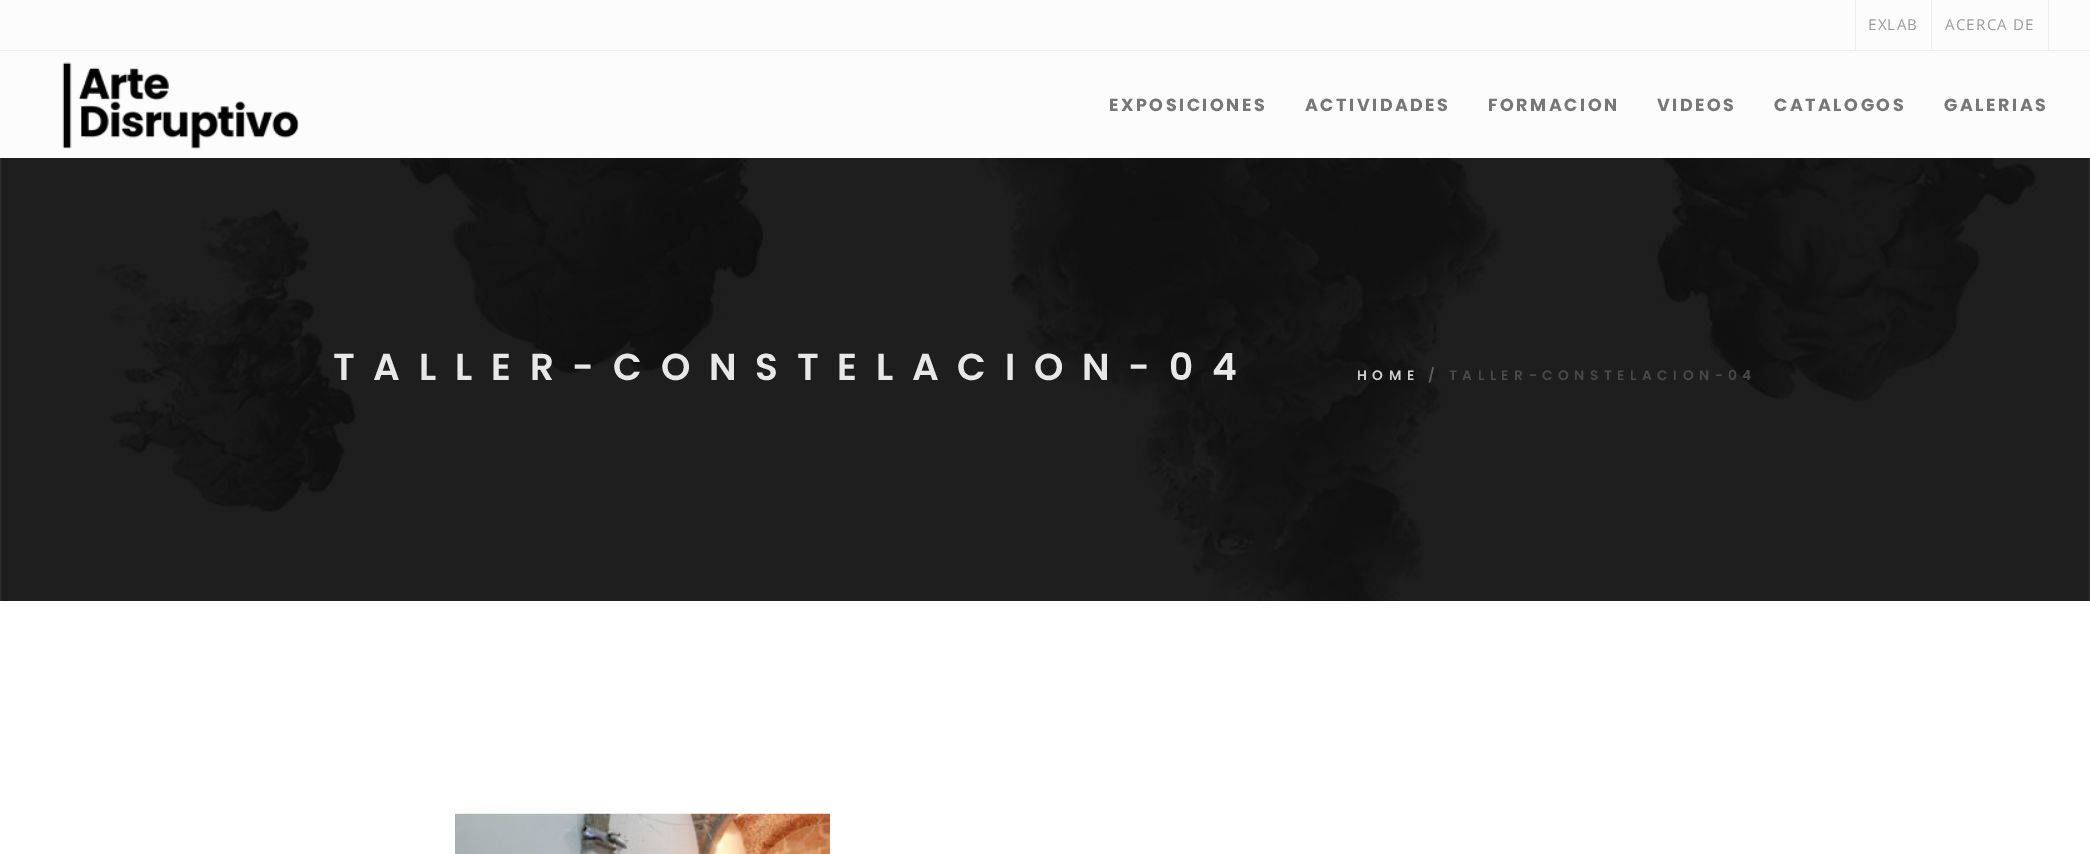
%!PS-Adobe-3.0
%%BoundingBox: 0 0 2090 854
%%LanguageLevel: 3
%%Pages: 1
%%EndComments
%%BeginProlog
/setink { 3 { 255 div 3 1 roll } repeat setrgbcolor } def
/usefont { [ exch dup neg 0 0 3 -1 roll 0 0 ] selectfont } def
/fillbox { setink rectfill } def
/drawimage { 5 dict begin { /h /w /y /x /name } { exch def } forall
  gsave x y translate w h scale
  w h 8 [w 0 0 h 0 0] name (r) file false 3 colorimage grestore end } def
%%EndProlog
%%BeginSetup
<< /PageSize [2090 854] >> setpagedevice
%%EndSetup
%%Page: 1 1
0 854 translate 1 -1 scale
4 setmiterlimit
0 0 2090 854 252 252 252 fillbox
0 50 2090 1 239 239 239 fillbox
1855 0 1 50 239 239 239 fillbox
/OpenSans-Regular 15 usefont
153 153 153 setink
1868 30 moveto 1.25 0 (EXLAB) ashow
2048 0 1 50 239 239 239 fillbox
1931 0 1 50 239 239 239 fillbox
153 153 153 setink
1945 30 moveto 1.25 0 (ACERCA DE) ashow
(assets/img1.rgb) 62 62 237 87 drawimage
/Poppins-Bold 17.5 usefont
119 119 119 setink
1109 111 moveto 2.5 0 (EXPOSICIONES) ashow
1305 111 moveto 2.5 0 (ACTIVIDADES) ashow
1488 111 moveto 2.5 0 (FORMACION) ashow
1657 111 moveto 2.5 0 (VIDEOS) ashow
1774 111 moveto 2.5 0 (CATALOGOS) ashow
1944 111 moveto 2.5 0 (GALERIAS) ashow
(assets/img2.rgb) 0 158 2090 443 drawimage
/Poppins-SemiBold 37.5 usefont
232 232 232 setink
333 380 moveto 18.75 0 (TALLER-CONSTELACION-04) ashow
/Poppins-SemiBold 13.75 usefont
208 208 208 setink
1357 380 moveto 5.5 0 (HOME) ashow
96 96 96 setink
1428 380 moveto 5.5 0 (/) ashow
73 73 73 setink
1449 380 moveto 5.5 0 (TALLER-CONSTELACION-04) ashow
0 601 2090 253 255 255 255 fillbox
(assets/img3.rgb) 455 813 375 41 drawimage
showpage
%%EOF
